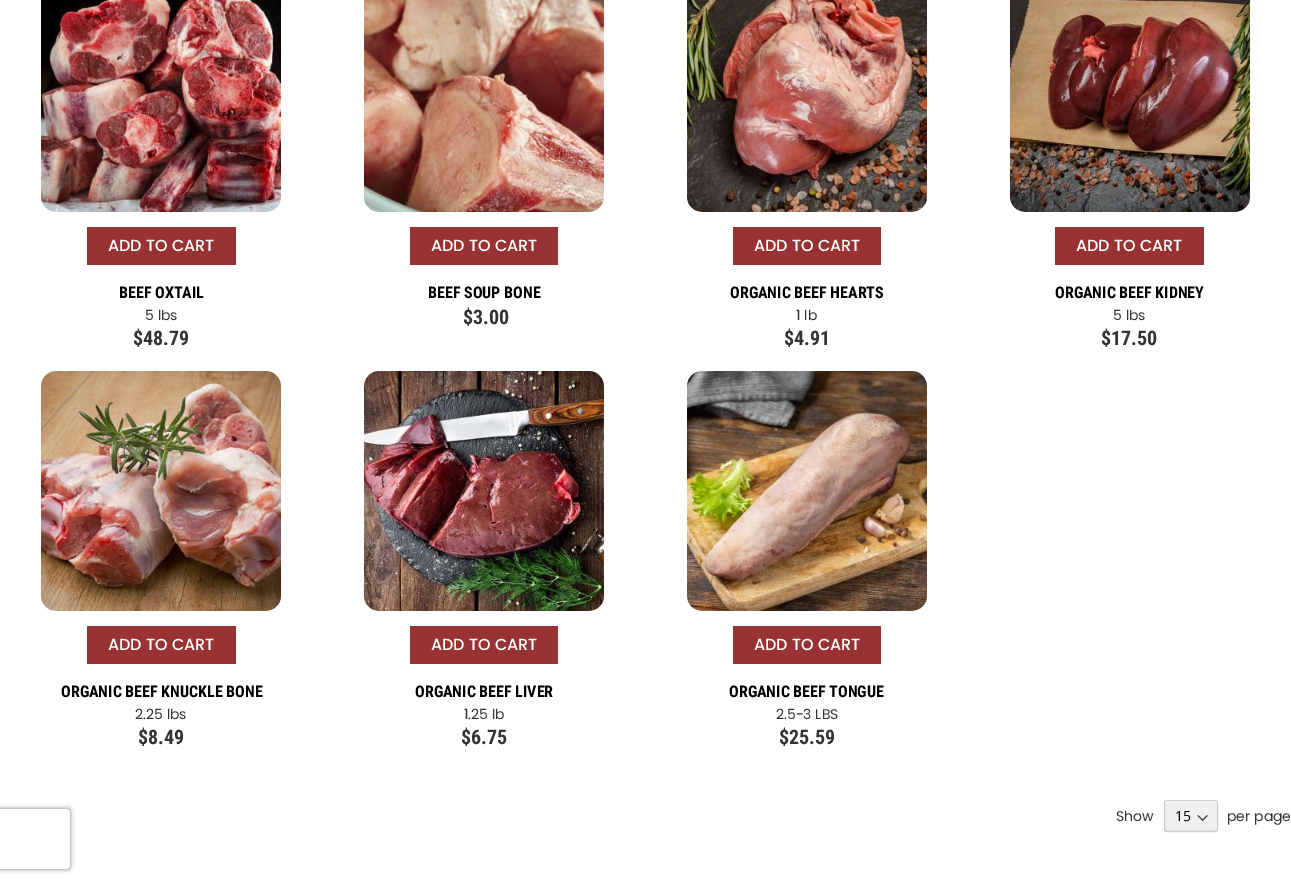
%!PS-Adobe-3.0
%%BoundingBox: 0 0 1291 883
%%LanguageLevel: 3
%%Pages: 1
%%EndComments
%%BeginProlog
/setink { 3 { 255 div 3 1 roll } repeat setrgbcolor } def
/usefont { [ exch dup neg 0 0 3 -1 roll 0 0 ] selectfont } def
/drawtext { setink usefont moveto show } def
/fillbox { setink rectfill } def
/setalpha { dup .setfillconstantalpha .setstrokeconstantalpha } def
/rrect { 5 dict begin { /r /h /w /y /x } { exch def } forall
  x r add y moveto x w add y 2 copy h add r arct x w add y h add x 1 index r arct
  x y h add x y r arct x y 2 copy exch w add exch r arct closepath end } def
/softshadow { 12 dict begin { /a /b /q /h /w /y /x } { exch def } forall gsave /was 0 def
  9 -2 -9 { dup b mul 4 div /e exch def 1 sub .425 mul 2.718 exch exp 1 add a .99 .min exch div /now exch def
    1 1 now sub 1 was sub div sub setalpha /was now def
    w h .min e 2 mul add 0 gt { x e sub y e sub w e 2 mul add h e 2 mul add
      q e add b .6 mul add w h .min 2 div e add .min 0 .max rrect fill } if } for grestore end } def
/drawimage { 5 dict begin { /h /w /y /x /name } { exch def } forall
  gsave x y translate w h scale
  w h 8 [w 0 0 h 0 0] name (r) file false 3 colorimage grestore end } def
%%EndProlog
%%BeginSetup
<< /PageSize [1291 883] /PageUsesTransparency true >> setpagedevice
%%EndSetup
%%Page: 1 1
0 .pushpdf14devicefilter
0 883 translate 1 -1 scale
4 setmiterlimit
0 0 1291 883 255 255 255 fillbox
(assets/img1.rgb) 41 0 240 212 drawimage
87 227 149 38 153 51 51 fillbox
(ADD TO CART) 108 251 /Poppins-Medium 16 255 255 255 drawtext
(BEEF OXTAIL) 119 298 /RobotoCondensed-Bold 16 0 0 0 drawtext
(5 lbs) 145 320 /Poppins-Regular 14 51 51 51 drawtext
($48.79) 133 345 /RobotoCondensed-Bold 20 51 51 51 drawtext
(assets/img2.rgb) 364 0 240 212 drawimage
410 227 148 38 153 51 51 fillbox
(ADD TO CART) 431 251 /Poppins-Medium 16 255 255 255 drawtext
(BEEF SOUP BONE) 428 298 /RobotoCondensed-Bold 16 0 0 0 drawtext
($3.00) 463 324 /RobotoCondensed-Bold 20 51 51 51 drawtext
(assets/img3.rgb) 687 0 240 212 drawimage
733 227 148 38 153 51 51 fillbox
(ADD TO CART) 754 251 /Poppins-Medium 16 255 255 255 drawtext
(ORGANIC BEEF HEARTS) 730 298 /RobotoCondensed-Bold 16 0 0 0 drawtext
(1 lb) 796 320 /Poppins-Regular 14 51 51 51 drawtext
($4.91) 784 345 /RobotoCondensed-Bold 20 51 51 51 drawtext
(assets/img4.rgb) 1010 0 240 212 drawimage
1055 227 149 38 153 51 51 fillbox
(ADD TO CART) 1076 251 /Poppins-Medium 16 255 255 255 drawtext
(ORGANIC BEEF KIDNEY) 1055 298 /RobotoCondensed-Bold 16 0 0 0 drawtext
(5 lbs) 1113 320 /Poppins-Regular 14 51 51 51 drawtext
($17.50) 1101 345 /RobotoCondensed-Bold 20 51 51 51 drawtext
(assets/img5.rgb) 41 371 240 240 drawimage
87 626 149 38 153 51 51 fillbox
(ADD TO CART) 108 650 /Poppins-Medium 16 255 255 255 drawtext
(ORGANIC BEEF KNUCKLE BONE) 61 697 /RobotoCondensed-Bold 16 0 0 0 drawtext
(2.25 lbs) 135 719 /Poppins-Regular 14 51 51 51 drawtext
($8.49) 138 744 /RobotoCondensed-Bold 20 51 51 51 drawtext
(assets/img6.rgb) 364 371 240 240 drawimage
410 626 148 38 153 51 51 fillbox
(ADD TO CART) 431 650 /Poppins-Medium 16 255 255 255 drawtext
(ORGANIC BEEF LIVER) 415 697 /RobotoCondensed-Bold 16 0 0 0 drawtext
(1.25 lb) 464 719 /Poppins-Regular 14 51 51 51 drawtext
($6.75) 461 744 /RobotoCondensed-Bold 20 51 51 51 drawtext
(assets/img7.rgb) 687 371 240 240 drawimage
733 626 148 38 153 51 51 fillbox
(ADD TO CART) 754 650 /Poppins-Medium 16 255 255 255 drawtext
(ORGANIC BEEF TONGUE) 729 697 /RobotoCondensed-Bold 16 0 0 0 drawtext
(2.5-3 LBS) 776 719 /Poppins-Regular 14 51 51 51 drawtext
($25.59) 779 744 /RobotoCondensed-Bold 20 51 51 51 drawtext
(Show) 1116 821 /Poppins-Regular 14 51 51 51 drawtext
240 240 240 setink
1165 801 52 30 2 rrect fill
(assets/img8.rgb) 1197 815 11 6 drawimage
229 229 229 setink
1165 828 moveto 1165 833 1171 831 1175 831 curveto 1207 831 lineto 1211 831 1217 833 1217 828 curveto 1216 830 lineto 1166 830 lineto closepath fill
255 255 255 setink
1167 802 moveto 1215 802 lineto 1216 802 1217 803 1217 804 curveto 1217 799 1211 801 1207 801 curveto 1175 801 lineto 1171 801 1165 799 1165 804 curveto 1165 803 1166 802 1167 802 curveto closepath fill
204 204 204 setink
1164.5 800.5 53 31 2.5 rrect stroke
(15) 1175 821 /OpenSans-Regular 14 0 0 0 drawtext
(per page) 1227 821 /Poppins-Regular 14 51 51 51 drawtext
gsave
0 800 moveto 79 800 lineto 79 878 lineto 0 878 lineto closepath -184 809 moveto 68 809 lineto 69 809 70 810 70 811 curveto 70 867 lineto 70 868 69 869 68 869 curveto -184 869 lineto -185 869 -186 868 -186 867 curveto -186 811 lineto -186 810 -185 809 -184 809 curveto closepath eoclip newpath
128 128 128 setink
-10 809 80 60 2 2.5 1 softshadow
grestore
.poppdf14devicefilter showpage
%%EOF
